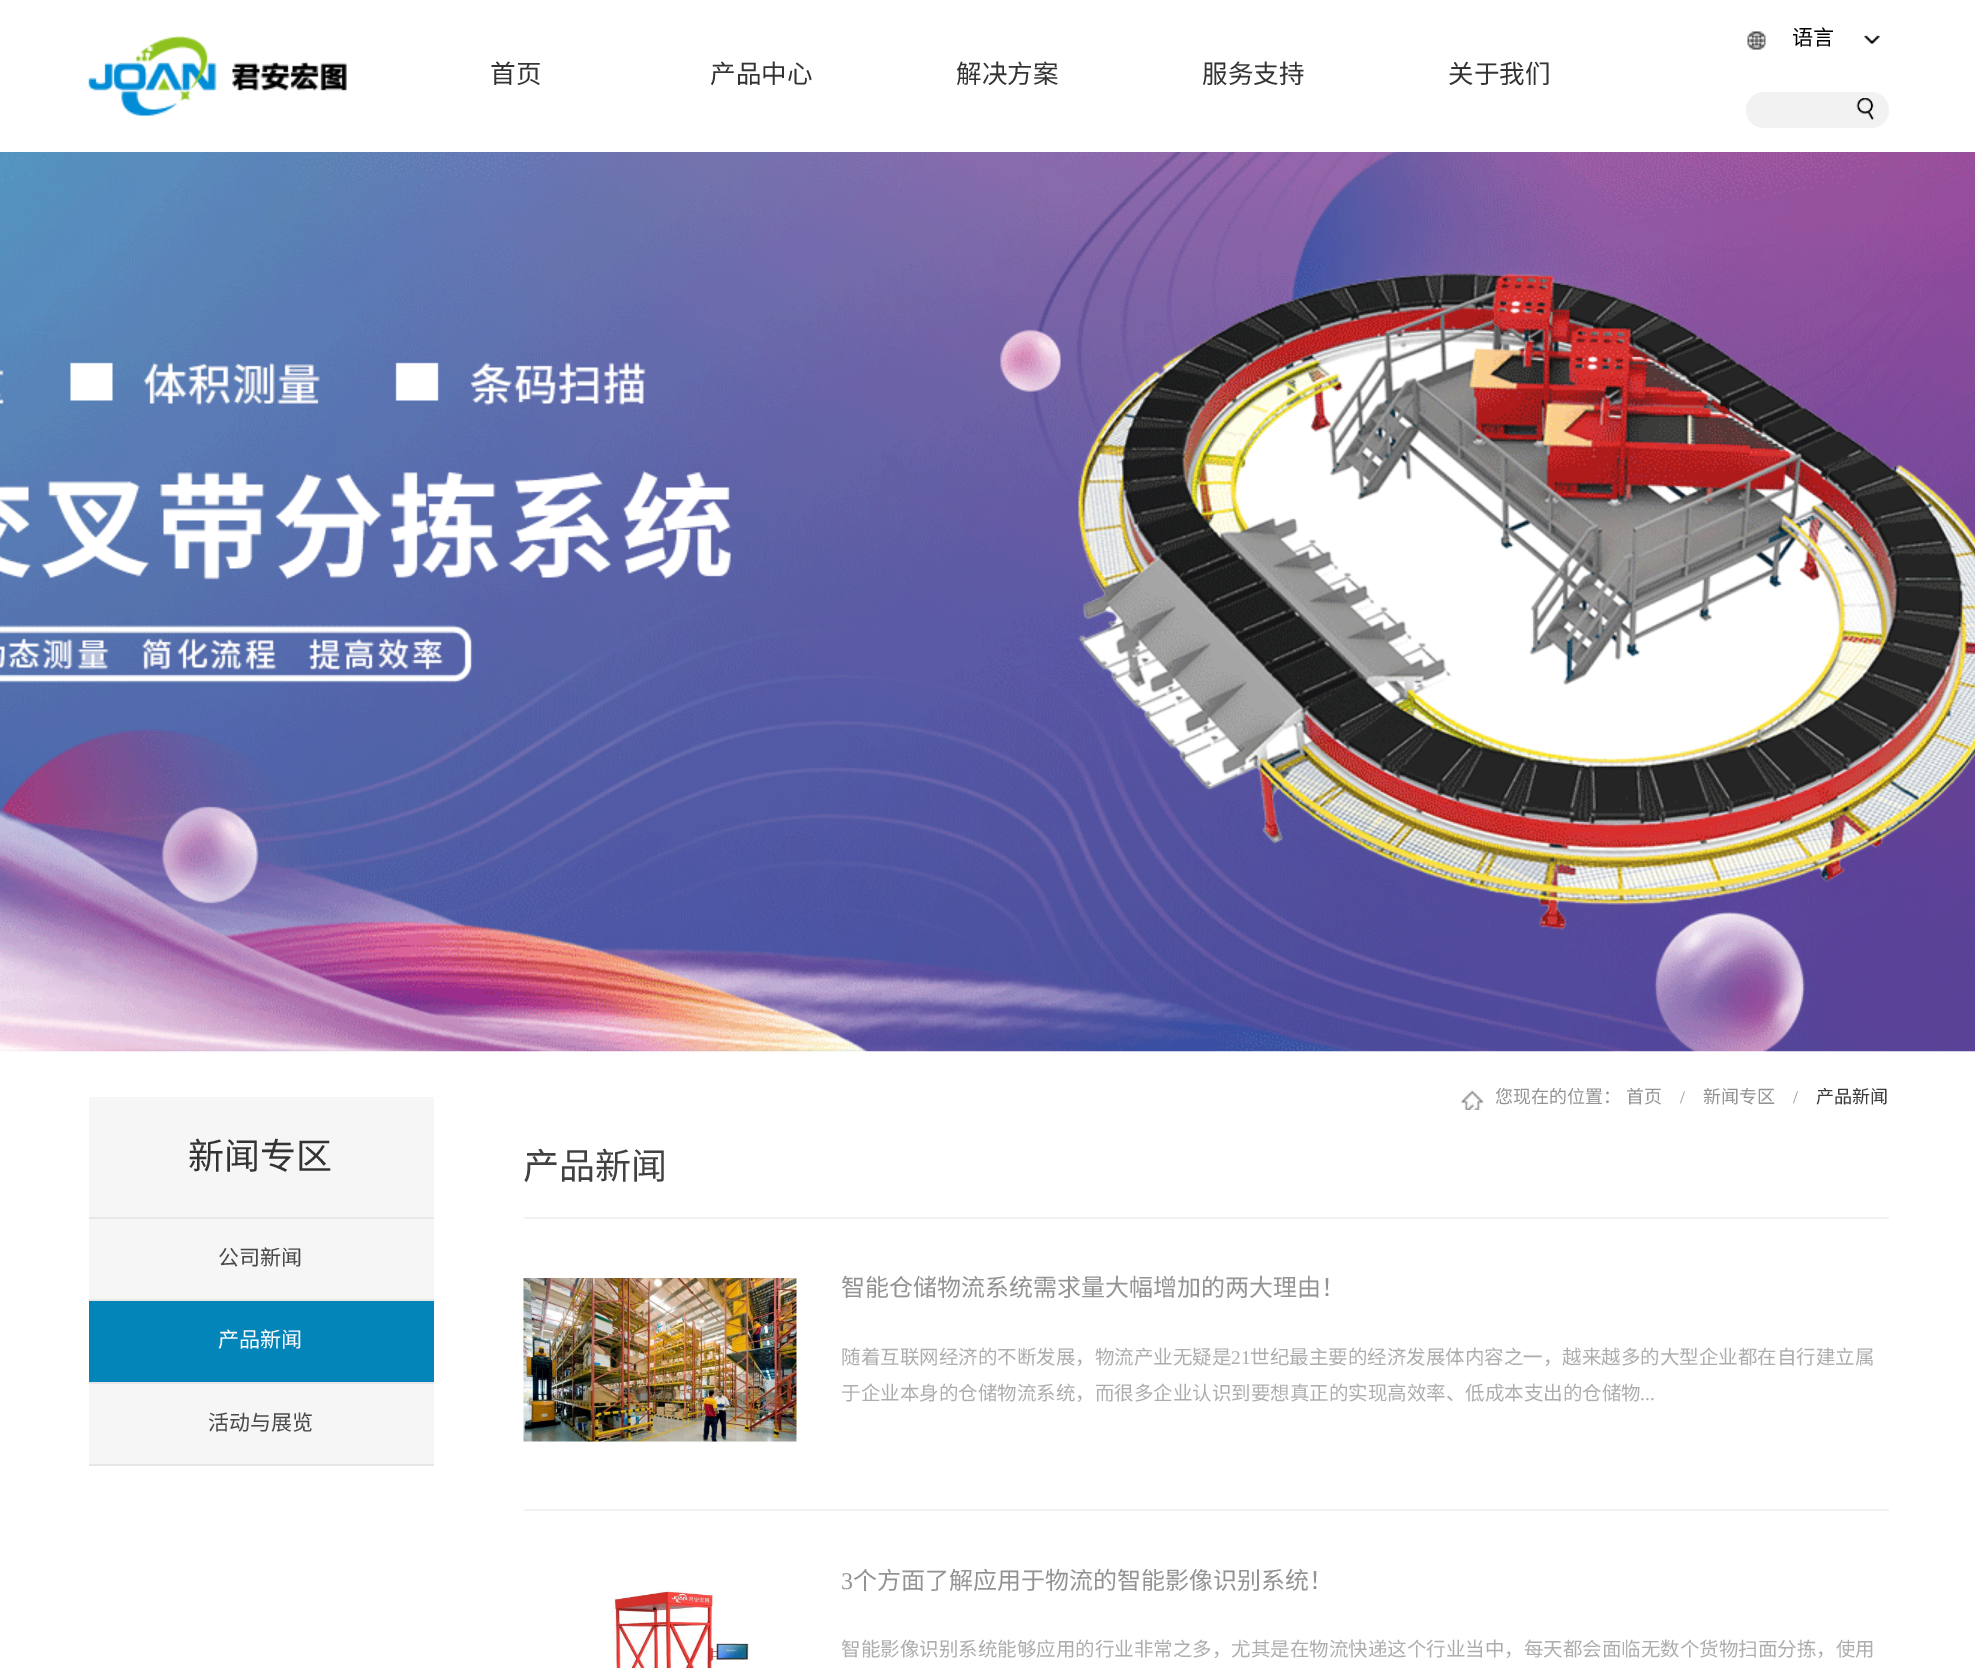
%!PS-Adobe-3.0
%%BoundingBox: 0 0 1975 1668
%%LanguageLevel: 3
%%Pages: 1
%%EndComments
%%BeginProlog
/setink { 3 { 255 div 3 1 roll } repeat setrgbcolor } def
/usefont { [ exch dup neg 0 0 3 -1 roll 0 0 ] selectfont } def
/drawtext { setink usefont moveto show } def
/fillbox { setink rectfill } def
/rrect { 5 dict begin { /r /h /w /y /x } { exch def } forall
  x r add y moveto x w add y 2 copy h add r arct x w add y h add x 1 index r arct
  x y h add x y r arct x y 2 copy exch w add exch r arct closepath end } def
/drawimage { 5 dict begin { /h /w /y /x /name } { exch def } forall
  gsave x y translate w h scale
  w h 8 [w 0 0 h 0 0] name (r) file false 3 colorimage grestore end } def
%%EndProlog
%%BeginSetup
<< /PageSize [1975 1668] >> setpagedevice
%%EndSetup
%%Page: 1 1
0 1668 translate 1 -1 scale
4 setmiterlimit
0 0 1975 1668 255 255 255 fillbox
(assets/img1.rgb) 88 36 259 80 drawimage
(assets/img2.rgb) 1747 31 133 19 drawimage
(语言) 1792 45 /NotoSansCJKSC-Regular 21 0 0 0 drawtext
242 242 242 setink
1746 92 143 36 18 rrect fill
(assets/img3.rgb) 1856 98 19 22 drawimage
(首页) 490 83 /NotoSansCJKSC-Regular 25.5 51 51 51 drawtext
(产品中心) 710 83 /NotoSansCJKSC-Regular 25.5 51 51 51 drawtext
(解决方案) 956 83 /NotoSansCJKSC-Regular 25.5 51 51 51 drawtext
(服务支持) 1202 83 /NotoSansCJKSC-Regular 25.5 51 51 51 drawtext
(关于我们) 1448 83 /NotoSansCJKSC-Regular 25.5 51 51 51 drawtext
(assets/img4.rgb) 0 152 1975 900 drawimage
89 1097 345 120 246 246 246 fillbox
(新闻专区) 188 1169 /NotoSansCJKSC-Regular 36 51 51 51 drawtext
89 1219 345 245 246 246 246 fillbox
89 1217 345 2 231 231 231 fillbox
89 1299 345 2 231 231 231 fillbox
(公司新闻) 218 1265 /NotoSansCJKSC-Regular 21 72 72 72 drawtext
89 1301 345 81 4 133 186 fillbox
89 1382 345 2 231 231 231 fillbox
(产品新闻) 218 1347 /NotoSansCJKSC-Regular 21 255 255 255 drawtext
89 1464 345 2 231 231 231 fillbox
(活动与展览) 208 1430 /NotoSansCJKSC-Regular 21 72 72 72 drawtext
(assets/img5.rgb) 1461 1090 23 20 drawimage
(您现在的位置：) 1495 1103 /NotoSansCJKSC-Regular 18 147 147 147 drawtext
(首页) 1626 1103 /NotoSansCJKSC-Regular 18 147 147 147 drawtext
(/) 1680 1103 /LiberationSerif-Regular 18 147 147 147 drawtext
(新闻专区) 1703 1103 /NotoSansCJKSC-Regular 18 147 147 147 drawtext
(/) 1793 1103 /LiberationSerif-Regular 18 147 147 147 drawtext
(产品新闻) 1816 1103 /NotoSansCJKSC-Regular 18 59 59 59 drawtext
524 1217 1365 2 242 242 242 fillbox
(产品新闻) 523 1179 /NotoSansCJKSC-Regular 36 65 65 65 drawtext
524 1509 1365 2 242 242 242 fillbox
(assets/img6.rgb) 523 1278 274 164 drawimage
(智能仓储物流系统需求量大幅增加的两大理由！) 841 1296 /NotoSansCJKSC-Regular 24 147 147 147 drawtext
(随着互联网经济的不断发展，物流产业无疑是) 841 1364 /NotoSansCJKSC-Regular 19.5 173 173 173 drawtext
(21) 1231 1364 /LiberationSerif-Regular 19.5 173 173 173 drawtext
(世纪最主要的经济发展体内容之一，越来越多的大型企业都在自行建立属) 1250 1364 /NotoSansCJKSC-Regular 19.5 173 173 173 drawtext
(于企业本身的仓储物流系统，而很多企业认识到要想真正的实现高效率、低成本支出的仓储物) 841 1400 /NotoSansCJKSC-Regular 19.5 173 173 173 drawtext
(...) 1640 1400 /LiberationSerif-Regular 19.5 173 173 173 drawtext
(3) 841 1589 /LiberationSerif-Regular 24 147 147 147 drawtext
(个方面了解应用于物流的智能影像识别系统！) 853 1589 /NotoSansCJKSC-Regular 24 147 147 147 drawtext
(assets/img7.rgb) 610 1589 140 79 drawimage
gsave
842 1632 1047 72 rectclip
(智能影像识别系统能够应用的行业非常之多，尤其是在物流快递这个行业当中，每天都会面临无数个货物扫面分拣，使用) 841 1656 /NotoSansCJKSC-Regular 19.5 173 173 173 drawtext
grestore
showpage
%%EOF
